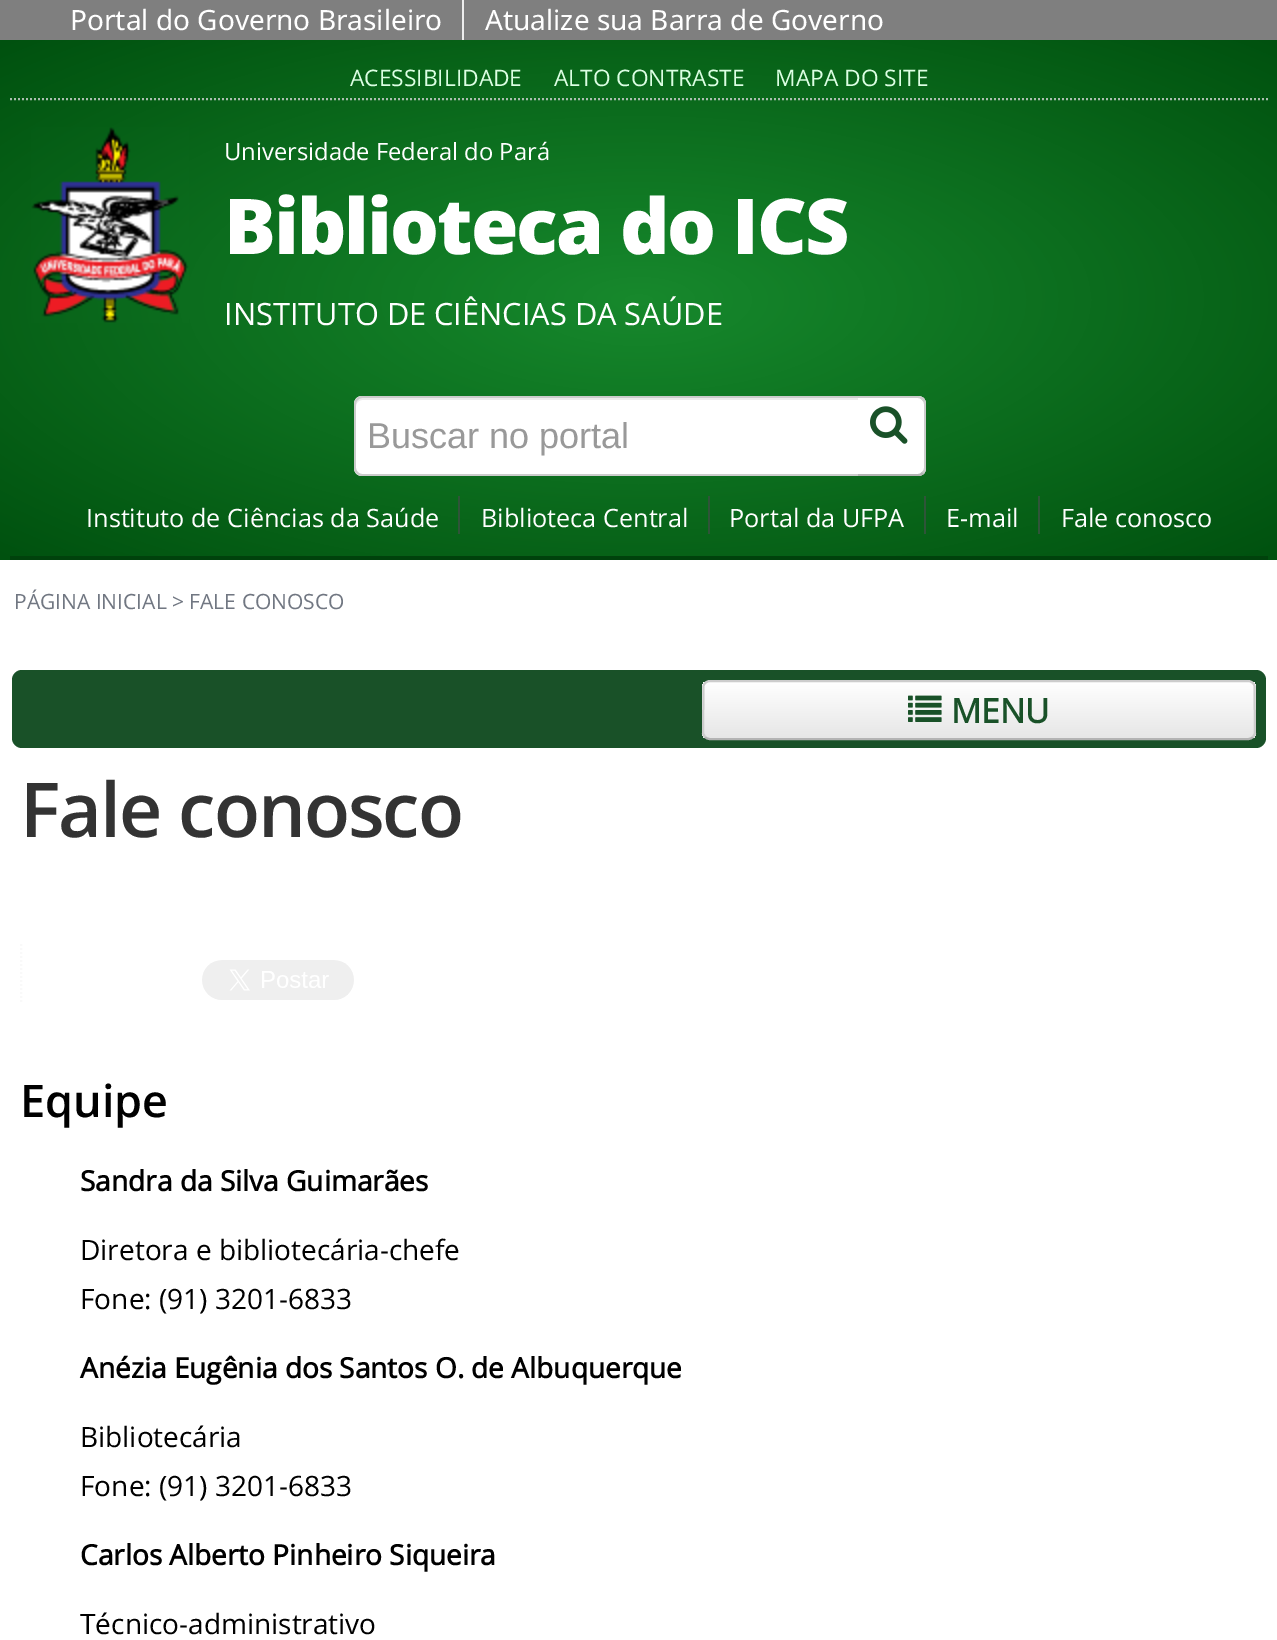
%!PS-Adobe-3.0
%%BoundingBox: 0 0 1277 1640
%%LanguageLevel: 3
%%Pages: 1
%%EndComments
%%BeginProlog
/setink { 3 { 255 div 3 1 roll } repeat setrgbcolor } def
/usefont { [ exch dup neg 0 0 3 -1 roll 0 0 ] selectfont } def
/drawtext { setink usefont moveto show } def
/fillbox { setink rectfill } def
/rrect { 5 dict begin { /r /h /w /y /x } { exch def } forall
  x r add y moveto x w add y 2 copy h add r arct x w add y h add x 1 index r arct
  x y h add x y r arct x y 2 copy exch w add exch r arct closepath end } def
/drawimage { 5 dict begin { /h /w /y /x /name } { exch def } forall
  gsave x y translate w h scale
  w h 8 [w 0 0 h 0 0] name (r) file false 3 colorimage grestore end } def
%%EndProlog
%%BeginSetup
<< /PageSize [1277 1640] >> setpagedevice
%%EndSetup
%%Page: 1 1
0 1640 translate 1 -1 scale
4 setmiterlimit
0 0 1277 1640 255 255 255 fillbox
0 0 1277 40 127 127 127 fillbox
462 0 2 40 237 237 237 fillbox
(Portal do Governo Brasileiro) 70 30 /NotoSans-Regular 28 255 255 255 drawtext
(Atualize sua Barra de Governo) 485 30 /NotoSans-Regular 28 255 255 255 drawtext
gsave 0 40 moveto 1277 40 lineto 1277 560 lineto 0 560 lineto closepath clip newpath 639 300 translate 904 368 scale
<< /ShadingType 3 /ColorSpace /DeviceRGB /Coords [0 0 0 0 0 1] /Extend [true true] /Function << /FunctionType 3 /Domain [0 1] /Functions [<< /FunctionType 2 /Domain [0 1] /C0 [0.09 0.533 0.173] /C1 [0.09 0.533 0.173] /N 1 >> << /FunctionType 2 /Domain [0 1] /C0 [0.09 0.533 0.173] /C1 [0 0.318 0.059] /N 1 >>] /Bounds [0.01] /Encode [0 1 0 1] >> >> shfill grestore
171 190 176 setink
2 setlinewidth
[2 2] 0 setdash
10 99 moveto 1268 99 lineto stroke
(ACESSIBILIDADE) 350 86 /OpenSans-Regular 22.75 220 255 227 drawtext
(ALTO CONTRASTE) 554 86 /OpenSans-Regular 22.75 220 255 227 drawtext
(MAPA DO SITE) 775 86 /OpenSans-Regular 22.75 220 255 227 drawtext
(assets/img1.rgb) 31 127 158 196 drawimage
(Universidade Federal do Pará) 224 160 /OpenSans-Regular 23.75 255 255 255 drawtext
/OpenSans-ExtraBold 77 usefont
224 254 moveto -2 0 (Biblioteca do ICS) ashow
(INSTITUTO DE CIÊNCIAS DA SAÚDE) 224 325 /OpenSans-Regular 30.75 255 255 255 drawtext
362 396 moveto 860 396 lineto 860 476 lineto 362 476 lineto 357.5 476 354 472.5 354 468 curveto 354 404 lineto 354 399.5 357.5 396 362 396 curveto closepath fill
236 236 236 setink
362 400 moveto 860 400 lineto 860 398 lineto 362 398 lineto 357 398 356 402 356 406 curveto 356 403 359 400 362 400 curveto closepath fill
204 204 204 setink
362 396 moveto 860 396 lineto 860 476 lineto 362 476 lineto 358 476 354 472 354 468 curveto 354 404 lineto 354 400 358 396 362 396 curveto closepath 362 398 moveto 860 398 lineto 860 474 lineto 362 474 lineto 359 474 356 471 356 468 curveto 356 404 lineto 356 401 359 398 362 398 curveto closepath eofill
(Buscar no portal) 367 448 /LiberationSans-Regular 36 153 153 153 drawtext
255 255 255 setink
858 396 moveto 918 396 lineto 922.5 396 926 399.5 926 404 curveto 926 468 lineto 926 472.5 922.5 476 918 476 curveto 858 476 lineto closepath fill
204 204 204 setink
858 396 moveto 858 398 lineto 918 398 lineto 920 398 921 399 922 400 curveto 924 398 lineto 922 397 920 396 918 396 curveto closepath fill
922 472 moveto 923 471 924 470 924 468 curveto 924 404 lineto 924 402 923 401 922 400 curveto 924 398 lineto 925 400 926 402 926 404 curveto 926 468 lineto 926 470 925 472 924 474 curveto closepath fill
179 179 179 setink
858 474 moveto 858 476 lineto 918 476 lineto 920 476 922 475 924 474 curveto 922 472 lineto 921 473 920 474 918 474 curveto closepath fill
(assets/img2.rgb) 870 406 38 38 drawimage
10 556 1258 4 0 66 12 fillbox
(Instituto de Ciências da Saúde) 86 527 /OpenSans-Regular 25.25 255 255 255 drawtext
458 496 2 38 47 84 57 fillbox
(Biblioteca Central) 481 527 /OpenSans-Regular 25.25 255 255 255 drawtext
(Portal da UFPA) 729 527 /OpenSans-Regular 25.25 255 255 255 drawtext
708 496 2 38 47 84 57 fillbox
924 496 2 38 47 84 57 fillbox
(E-mail) 946 527 /OpenSans-Regular 25.25 255 255 255 drawtext
1038 496 2 38 47 84 57 fillbox
(Fale conosco) 1061 527 /OpenSans-Regular 25.25 255 255 255 drawtext
(PÁGINA INICIAL > FALE CONOSCO) 14 609 /OpenSans-Regular 21 113 119 130 drawtext
25 81 40 setink
12 670 1254 78 10 rrect fill
gsave
702 680 554 60 8 rrect clip newpath
gsave 702 682 moveto 1256 682 lineto 1256 738 lineto 702 738 lineto closepath clip newpath
<< /ShadingType 2 /ColorSpace /DeviceRGB /Coords [979 682 979 738] /Extend [true true] /Function << /FunctionType 2 /Domain [0 1] /C0 [1 1 1] /C1 [0.902 0.902 0.902] /N 1 >> >> shfill grestore
grestore
179 179 179 setink
[] 0 setdash
1253 737 moveto 1251.5 738.5 1250 739 1248 739 curveto 710 739 lineto 708 739 706.5 738.5 705 737 curveto stroke
204 204 204 setink
705 737 moveto 703 733.5 lineto 703.5 686 lineto 704 683 707 681 710 681 curveto 1248 681 lineto 1251 681 1254 683 1254.5 686 curveto 1255 733.5 lineto 1253 737 lineto stroke
(assets/img3.rgb) 908 695 34 27 drawimage
(MENU) 951 723 /OpenSans-Bold 33.5 25 81 40 drawtext
/OpenSans-SemiBold 75.5 usefont
51 51 51 setink
20 837 moveto -2 0 (Fale conosco) ashow
249 249 249 setink
[2 2] 0 setdash
21 944 moveto 21 1004 lineto stroke
(assets/img4.rgb) 202 960 152 40 drawimage
(Equipe) 20 1117 /OpenSans-SemiBold 45 0 0 0 drawtext
(Sandra da Silva Guimarães) 80 1191 /OpenSans-Bold 28 0 0 0 drawtext
(Diretora e bibliotecária-chefe) 80 1260 /OpenSans-Regular 28 0 0 0 drawtext
(Fone: \(91\) 3201-6833) 80 1309 /OpenSans-Regular 28 0 0 0 drawtext
(Anézia Eugênia dos Santos O. de Albuquerque) 80 1378 /OpenSans-Bold 28 0 0 0 drawtext
(Bibliotecária) 80 1447 /OpenSans-Regular 28 0 0 0 drawtext
(Fone: \(91\) 3201-6833) 80 1496 /OpenSans-Regular 28 0 0 0 drawtext
(Carlos Alberto Pinheiro Siqueira) 80 1565 /OpenSans-Bold 28 0 0 0 drawtext
(Técnico-administrativo) 80 1634 /OpenSans-Regular 28 0 0 0 drawtext
showpage
%%EOF
